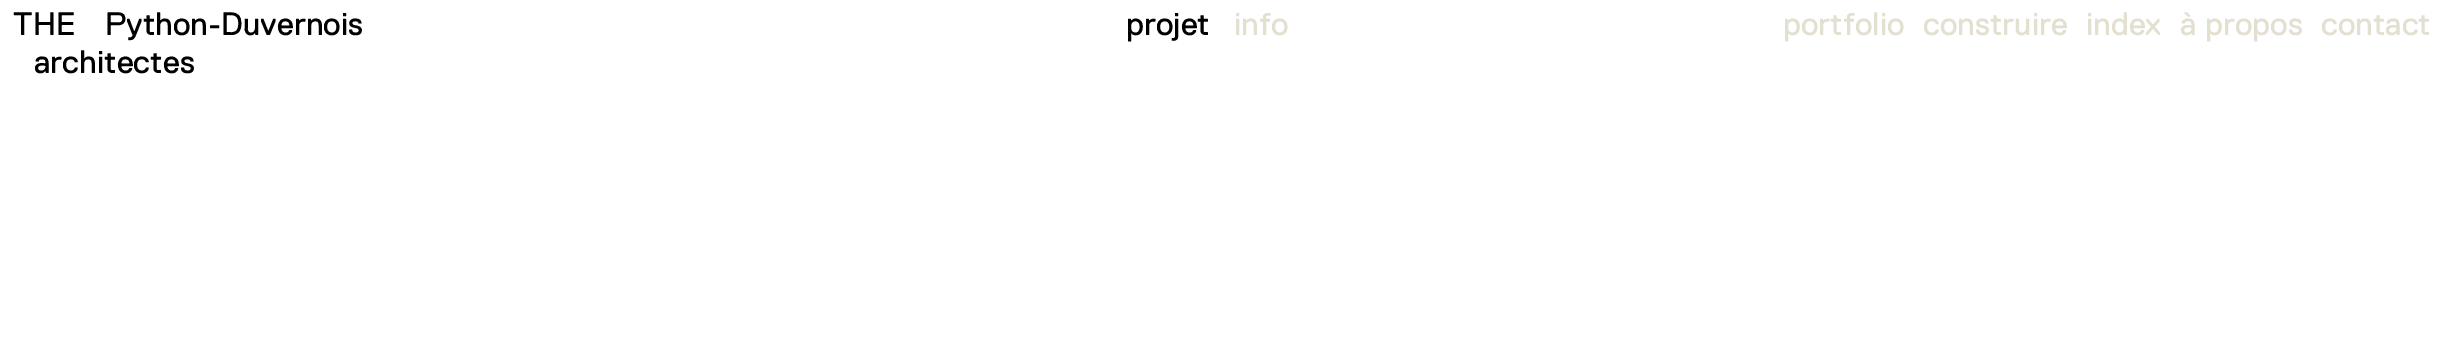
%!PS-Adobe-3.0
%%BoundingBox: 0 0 2443 337
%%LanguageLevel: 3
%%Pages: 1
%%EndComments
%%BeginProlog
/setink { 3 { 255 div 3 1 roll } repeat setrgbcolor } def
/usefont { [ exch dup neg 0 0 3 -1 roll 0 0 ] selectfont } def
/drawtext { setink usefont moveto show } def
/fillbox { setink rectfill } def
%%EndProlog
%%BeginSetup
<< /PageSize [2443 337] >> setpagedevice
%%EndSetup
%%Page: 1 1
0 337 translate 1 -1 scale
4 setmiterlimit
0 0 2443 337 255 255 255 fillbox
(THE) 13 35 /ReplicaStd-Regular 32.5 0 0 0 drawtext
(architectes) 34 73 /ReplicaStd-Regular 32.5 0 0 0 drawtext
(portfolio) 1783 35 /ReplicaStd-Regular 32.5 228 224 209 drawtext
(construire) 1923 35 /ReplicaStd-Regular 32.5 228 224 209 drawtext
(index) 2086 35 /ReplicaStd-Regular 32.5 228 224 209 drawtext
(à propos) 2180 35 /ReplicaStd-Regular 32.5 228 224 209 drawtext
(contact) 2321 35 /ReplicaStd-Regular 32.5 228 224 209 drawtext
(Python-Duvernois) 105 35 /ReplicaStd-Regular 32.5 0 0 0 drawtext
(projet) 1126 35 /ReplicaStd-Regular 32.5 0 0 0 drawtext
(info) 1234 35 /ReplicaStd-Regular 32.5 228 224 209 drawtext
showpage
%%EOF
